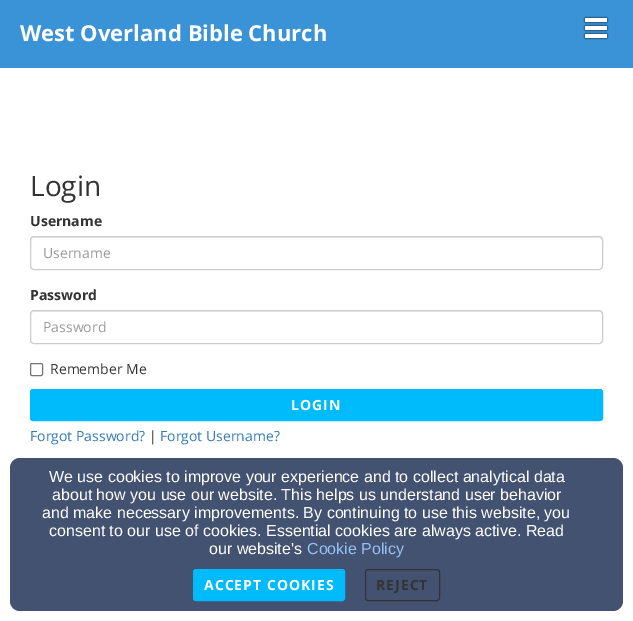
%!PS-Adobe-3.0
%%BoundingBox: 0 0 633 621
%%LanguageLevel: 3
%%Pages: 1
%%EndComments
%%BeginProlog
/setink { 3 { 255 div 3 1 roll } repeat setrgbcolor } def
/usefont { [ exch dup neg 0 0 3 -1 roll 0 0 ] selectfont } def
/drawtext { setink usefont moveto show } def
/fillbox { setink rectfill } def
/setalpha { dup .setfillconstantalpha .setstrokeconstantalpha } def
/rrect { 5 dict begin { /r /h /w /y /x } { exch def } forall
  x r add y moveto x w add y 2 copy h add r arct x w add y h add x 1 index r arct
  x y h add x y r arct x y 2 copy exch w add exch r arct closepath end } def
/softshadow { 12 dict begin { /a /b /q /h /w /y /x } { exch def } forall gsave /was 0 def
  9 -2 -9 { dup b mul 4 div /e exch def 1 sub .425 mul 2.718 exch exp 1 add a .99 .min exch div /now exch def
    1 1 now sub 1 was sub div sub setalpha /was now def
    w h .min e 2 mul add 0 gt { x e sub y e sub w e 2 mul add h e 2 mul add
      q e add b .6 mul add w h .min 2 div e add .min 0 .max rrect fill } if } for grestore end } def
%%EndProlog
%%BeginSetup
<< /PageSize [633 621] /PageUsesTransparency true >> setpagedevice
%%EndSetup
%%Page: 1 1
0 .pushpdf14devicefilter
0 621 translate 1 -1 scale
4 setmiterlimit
0 0 633 621 255 255 255 fillbox
0 0 633 68 58 146 215 fillbox
(West Overland Bible Church) 20 41 /OpenSans-Bold 22 255 255 255 drawtext
0 0 0 setink
585 18 22 4 1 1 1 softshadow
255 255 255 setink
585 18 22 4 1 rrect fill
0 0 0 setink
585 26 22 4 1 1 1 softshadow
255 255 255 setink
585 26 22 4 1 rrect fill
0 0 0 setink
585 34 22 4 1 1 1 softshadow
255 255 255 setink
585 34 22 4 1 rrect fill
(Login) 30 196 /OpenSans-Regular 28 51 51 51 drawtext
(Username) 30 226 /OpenSans-Bold 14 51 51 51 drawtext
236 236 236 setink
34 238 moveto 599 238 lineto 601 238 602 239 602 241 curveto 602 240 lineto 602 238 601 237 599 237 curveto 34 237 lineto 32 237 31 238 31 240 curveto 31 241 lineto 31 239 32 238 34 238 curveto closepath fill
204 204 204 setink
30.5 236.5 572 33 3.5 rrect stroke
(Username) 43 258 /OpenSans-Regular 14 153 153 153 drawtext
(Password) 30 300 /OpenSans-Bold 14 51 51 51 drawtext
236 236 236 setink
34 312 moveto 599 312 lineto 601 312 602 313 602 315 curveto 602 314 lineto 602 312 601 311 599 311 curveto 34 311 lineto 32 311 31 312 31 314 curveto 31 315 lineto 31 313 32 312 34 312 curveto closepath fill
204 204 204 setink
30.5 310.5 572 33 3.5 rrect stroke
(Password) 43 332 /OpenSans-Regular 14 153 153 153 drawtext
118 118 118 setink
30.5 363.5 12 12 1.5 rrect stroke
(Remember Me) 50 374 /OpenSans-Regular 14 51 51 51 drawtext
0 187 252 setink
30.5 389.5 572 31 2.5 rrect gsave fill grestore
stroke
/OpenSans-Bold 14 usefont
255 255 255 setink
291 410 moveto 1 0 (LOGIN) ashow
(Forgot Password?) 30 441 /OpenSans-Regular 14 51 122 183 drawtext
(|) 149 441 /OpenSans-Regular 14 51 51 51 drawtext
(Forgot Username?) 160 441 /OpenSans-Regular 14 51 122 183 drawtext
67 82 112 setink
10 458 613 153 10 rrect fill
(We use cookies to improve your experience and to collect analytical data) 49 482 /LiberationSans-Regular 16 255 255 255 drawtext
(about how you use our website. This helps us understand user behavior) 52 500 /LiberationSans-Regular 16 255 255 255 drawtext
(and make necessary improvements. By continuing to use this website, you) 42 518 /LiberationSans-Regular 16 255 255 255 drawtext
(consent to our use of cookies. Essential cookies are always active. Read) 49 536 /LiberationSans-Regular 16 255 255 255 drawtext
(our website's) 209 554 /LiberationSans-Regular 16 255 255 255 drawtext
(Cookie Policy) 307 554 /LiberationSans-Regular 16 148 192 243 drawtext
0 187 252 setink
193.5 569.5 151 31 2.5 rrect gsave fill grestore
stroke
/OpenSans-Bold 14 usefont
255 255 255 setink
204 590 moveto 1 0 (ACCEPT COOKIES) ashow
51 51 51 setink
365.5 569.5 74 31 2.5 rrect stroke
376 590 moveto 1 0 (REJECT) ashow
.poppdf14devicefilter showpage
%%EOF
